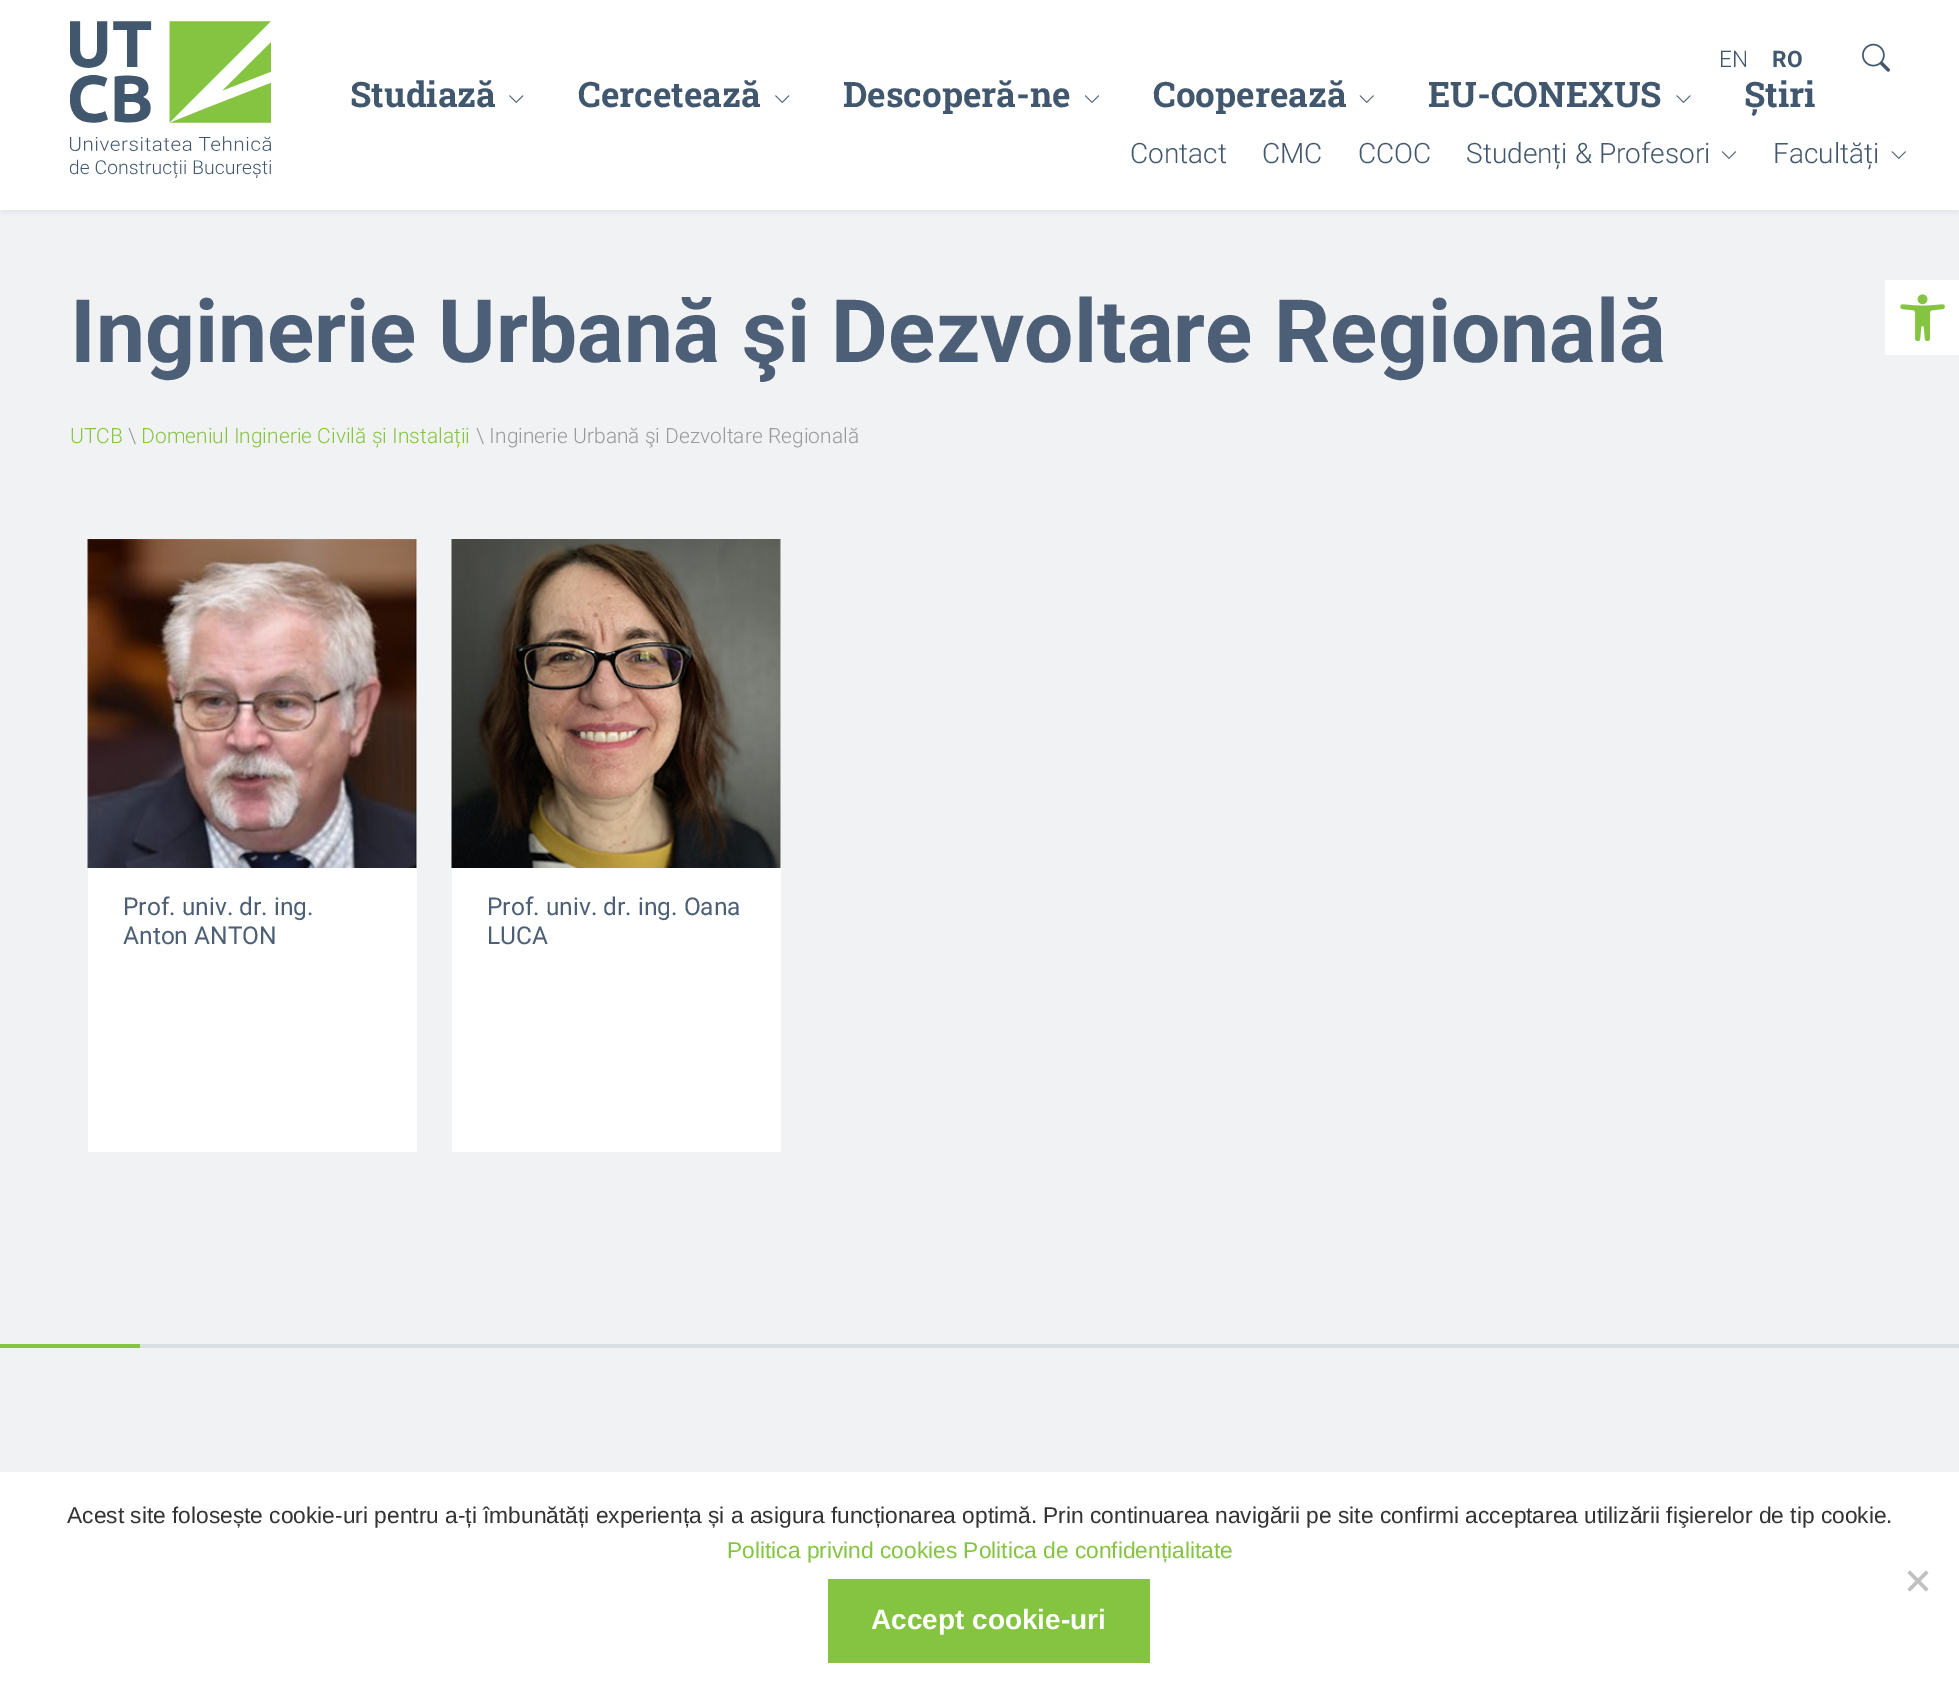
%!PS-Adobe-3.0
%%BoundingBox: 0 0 1959 1688
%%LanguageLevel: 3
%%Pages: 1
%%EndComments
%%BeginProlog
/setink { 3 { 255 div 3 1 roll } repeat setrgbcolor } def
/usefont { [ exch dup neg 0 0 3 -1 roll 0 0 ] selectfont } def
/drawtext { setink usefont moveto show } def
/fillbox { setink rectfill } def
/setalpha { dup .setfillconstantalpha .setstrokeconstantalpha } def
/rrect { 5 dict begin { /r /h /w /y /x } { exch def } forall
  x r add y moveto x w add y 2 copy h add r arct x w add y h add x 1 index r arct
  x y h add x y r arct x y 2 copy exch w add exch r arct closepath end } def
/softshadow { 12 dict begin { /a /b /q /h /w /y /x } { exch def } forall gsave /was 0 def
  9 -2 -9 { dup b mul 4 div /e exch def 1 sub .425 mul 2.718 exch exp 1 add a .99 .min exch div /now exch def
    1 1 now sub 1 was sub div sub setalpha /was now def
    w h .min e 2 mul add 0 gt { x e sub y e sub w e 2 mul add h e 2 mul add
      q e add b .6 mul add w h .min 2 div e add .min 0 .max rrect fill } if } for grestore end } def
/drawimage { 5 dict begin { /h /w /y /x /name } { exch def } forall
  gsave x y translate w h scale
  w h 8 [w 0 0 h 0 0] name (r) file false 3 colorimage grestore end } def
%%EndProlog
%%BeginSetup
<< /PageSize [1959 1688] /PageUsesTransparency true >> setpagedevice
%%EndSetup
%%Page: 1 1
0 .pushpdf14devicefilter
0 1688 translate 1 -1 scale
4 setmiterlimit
0 0 1959 1688 241 242 244 fillbox
76 95 119 setink
2 5 1956 207 0 2 0.1 softshadow
0 0 1959 210 255 255 255 fillbox
(assets/img1.rgb) 70 21 201 158 drawimage
(EN) 1719 67 /Roboto-Light 22.75 65 87 109 drawtext
(RO) 1772 67 /Roboto-Bold 22.75 65 87 109 drawtext
(assets/img2.rgb) 1862 43 28 29 drawimage
(Studiază) 350 107 /RobotoSlab-Bold 35 65 87 109 drawtext
(assets/img3.rgb) 509 95 15 8 drawimage
(Cercetează) 578 107 /RobotoSlab-Bold 35 65 87 109 drawtext
(assets/img3.rgb) 775 95 15 8 drawimage
(Descoperă-ne) 843 107 /RobotoSlab-Bold 35 65 87 109 drawtext
(assets/img4.rgb) 1084 95 16 8 drawimage
(Cooperează) 1153 107 /RobotoSlab-Bold 35 65 87 109 drawtext
(assets/img5.rgb) 1359 95 15 8 drawimage
(EU-CONEXUS) 1428 107 /RobotoSlab-Bold 35 65 87 109 drawtext
(assets/img6.rgb) 1676 95 15 8 drawimage
(Știri) 1744 107 /RobotoSlab-Bold 35 65 87 109 drawtext
(Contact) 1130 163 /Roboto-Light 28 65 87 109 drawtext
(CMC) 1262 163 /Roboto-Light 28 65 87 109 drawtext
(CCOC) 1358 163 /Roboto-Light 28 65 87 109 drawtext
(Studenți & Profesori) 1466 163 /Roboto-Light 28 65 87 109 drawtext
(assets/img4.rgb) 1721 151 16 8 drawimage
(Facultăți) 1773 163 /Roboto-Light 28 65 87 109 drawtext
(assets/img5.rgb) 1891 151 15 8 drawimage
(Inginerie Urbană şi Dezvoltare Regională) 70 362 /Roboto-Bold 87.5 76 95 119 drawtext
1885 280 74 75 255 255 255 fillbox
(assets/img7.rgb) 1900 294 45 47 drawimage
(UTCB) 70 443 /Roboto-Light 21 132 196 65 drawtext
(\\) 128 443 /Roboto-Light 21 153 153 153 drawtext
(Domeniul Inginerie Civilă și Instalații) 141 443 /Roboto-Light 21 132 196 65 drawtext
(\\ Inginerie Urbană şi Dezvoltare Regională) 476 443 /Roboto-Light 21 153 153 153 drawtext
88 539 329 613 255 255 255 fillbox
(assets/img8.rgb) 87 539 330 329 drawimage
(Prof. univ. dr. ing.) 123 915 /Roboto-Regular 24.5 76 95 119 drawtext
(Anton ANTON) 123 944 /Roboto-Regular 24.5 76 95 119 drawtext
452 539 329 613 255 255 255 fillbox
(assets/img9.rgb) 451 539 330 329 drawimage
(Prof. univ. dr. ing. Oana) 487 915 /Roboto-Regular 24.5 76 95 119 drawtext
(LUCA) 487 944 /Roboto-Regular 24.5 76 95 119 drawtext
140 1344 1819 4 218 223 228 fillbox
0 1344 140 4 132 196 65 fillbox
0 1472 1959 216 255 255 255 fillbox
(Acest site folosește cookie-uri pentru a-ți îmbunătăți experiența și a asigura funcționarea optimă. Prin continuarea navigării pe site confirmi acceptarea utilizării fişierelor de tip cookie.) 67 1523 /LiberationSans-Regular 22.75 51 51 51 drawtext
(Politica privind cookies Politica de confidențialitate) 727 1558 /LiberationSans-Regular 22.75 132 196 65 drawtext
192 192 192 setink
1926 1570.5 moveto 1928.5 1573 lineto 1910 1591.5 lineto 1907.5 1589 lineto closepath fill
1907.5 1573 moveto 1910 1570.5 lineto 1928.5 1589 lineto 1926 1591.5 lineto closepath fill
828 1579 322 84 132 196 65 fillbox
(Accept cookie-uri) 871 1629 /LiberationSans-Bold 28 255 255 255 drawtext
.poppdf14devicefilter showpage
%%EOF
